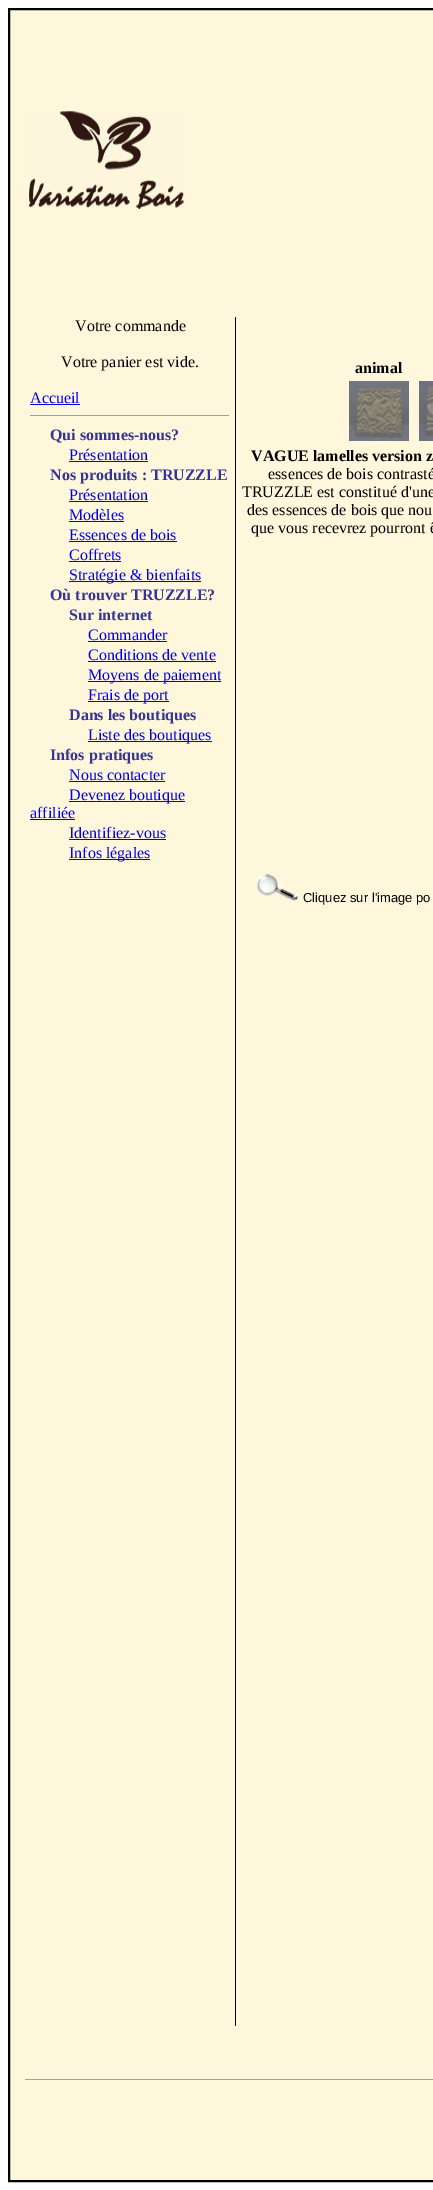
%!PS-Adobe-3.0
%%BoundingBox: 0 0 433 2190
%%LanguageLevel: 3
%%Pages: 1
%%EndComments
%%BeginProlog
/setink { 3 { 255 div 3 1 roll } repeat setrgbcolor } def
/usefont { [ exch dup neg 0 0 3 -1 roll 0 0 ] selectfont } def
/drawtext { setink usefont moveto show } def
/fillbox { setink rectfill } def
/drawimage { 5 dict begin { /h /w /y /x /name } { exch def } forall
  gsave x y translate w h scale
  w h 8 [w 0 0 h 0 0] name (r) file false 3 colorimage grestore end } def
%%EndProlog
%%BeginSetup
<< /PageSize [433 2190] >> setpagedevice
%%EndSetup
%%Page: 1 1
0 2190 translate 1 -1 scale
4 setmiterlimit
0 0 433 2190 255 255 255 fillbox
0 0 0 setink
8.5 8.5 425 2173 rectstroke
255 247 220 setink
9.5 9.5 moveto 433.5 9.5 lineto 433.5 2180.5 lineto 9.5 2180.5 lineto closepath gsave fill grestore
0 0 0 setink
stroke
(assets/img1.rgb) 29 111 155 98 drawimage
(Votre commande) 75 331 /LiberationSerif-Regular 16 0 0 0 drawtext
(Votre panier est vide.) 61 367 /LiberationSerif-Regular 16 0 0 0 drawtext
(Accueil) 30 403 /LiberationSerif-Regular 16 0 0 238 drawtext
30 404 50 1 0 0 238 fillbox
30 415 200 1 159 159 159 fillbox
229 415 1 1 238 238 238 fillbox
(Qui sommes-nous?) 50 440 /LiberationSerif-Bold 16 51 51 153 drawtext
(Présentation) 69 460 /LiberationSerif-Regular 16 0 0 238 drawtext
69 461 79 1 0 0 238 fillbox
(Nos produits : TRUZZLE) 50 480 /LiberationSerif-Bold 16 51 51 153 drawtext
(Présentation) 69 500 /LiberationSerif-Regular 16 0 0 238 drawtext
69 501 79 1 0 0 238 fillbox
(Modèles) 69 520 /LiberationSerif-Regular 16 0 0 238 drawtext
69 521 55 1 0 0 238 fillbox
(Essences de bois) 69 540 /LiberationSerif-Regular 16 0 0 238 drawtext
69 541 108 1 0 0 238 fillbox
(Coffrets) 69 560 /LiberationSerif-Regular 16 0 0 238 drawtext
69 561 52 1 0 0 238 fillbox
69 581 132 1 0 0 238 fillbox
(Stratégie & bienfaits) 69 580 /LiberationSerif-Regular 16 0 0 238 drawtext
(Où trouver TRUZZLE?) 50 600 /LiberationSerif-Bold 16 51 51 153 drawtext
(Sur internet) 69 620 /LiberationSerif-Bold 16 51 51 153 drawtext
(Commander) 88 640 /LiberationSerif-Regular 16 0 0 238 drawtext
88 641 79 1 0 0 238 fillbox
(Conditions de vente) 88 660 /LiberationSerif-Regular 16 0 0 238 drawtext
88 661 128 1 0 0 238 fillbox
88 681 133 1 0 0 238 fillbox
(Moyens de paiement) 88 680 /LiberationSerif-Regular 16 0 0 238 drawtext
88 701 81 1 0 0 238 fillbox
(Frais de port) 88 700 /LiberationSerif-Regular 16 0 0 238 drawtext
(Dans les boutiques) 69 720 /LiberationSerif-Bold 16 51 51 153 drawtext
88 741 124 1 0 0 238 fillbox
(Liste des boutiques) 88 740 /LiberationSerif-Regular 16 0 0 238 drawtext
(Infos pratiques) 50 760 /LiberationSerif-Bold 16 51 51 153 drawtext
(Nous contacter) 69 780 /LiberationSerif-Regular 16 0 0 238 drawtext
69 781 96 1 0 0 238 fillbox
69 801 116 1 0 0 238 fillbox
(Devenez boutique) 69 800 /LiberationSerif-Regular 16 0 0 238 drawtext
(affiliée) 30 818 /LiberationSerif-Regular 16 0 0 238 drawtext
30 819 45 1 0 0 238 fillbox
(Identifiez-vous) 69 838 /LiberationSerif-Regular 16 0 0 238 drawtext
69 839 97 1 0 0 238 fillbox
69 859 81 1 0 0 238 fillbox
(Infos légales) 69 858 /LiberationSerif-Regular 16 0 0 238 drawtext
235 317 1 1709 0 0 0 fillbox
(animal) 355 373 /LiberationSerif-Bold 16 0 0 0 drawtext
(assets/img2.rgb) 349 381 60 60 drawimage
(assets/img3.rgb) 419 381 14 60 drawimage
(VAGUE lamelles version z) 251 461 /LiberationSerif-Bold 16 0 0 0 drawtext
(essences de bois contrasté) 268 479 /LiberationSerif-Regular 16 0 0 0 drawtext
(TRUZZLE est constitué d'une) 242 497 /LiberationSerif-Regular 16 0 0 0 drawtext
(des essences de bois que nou) 247 515 /LiberationSerif-Regular 16 0 0 0 drawtext
(que vous recevrez pourront ê) 251 533 /LiberationSerif-Regular 16 0 0 0 drawtext
(assets/img4.rgb) 257 874 42 28 drawimage
(Cliquez sur l'image po) 303 902 /LiberationSans-Regular 13 0 0 0 drawtext
25 2079 408 1 159 159 159 fillbox
showpage
%%EOF
